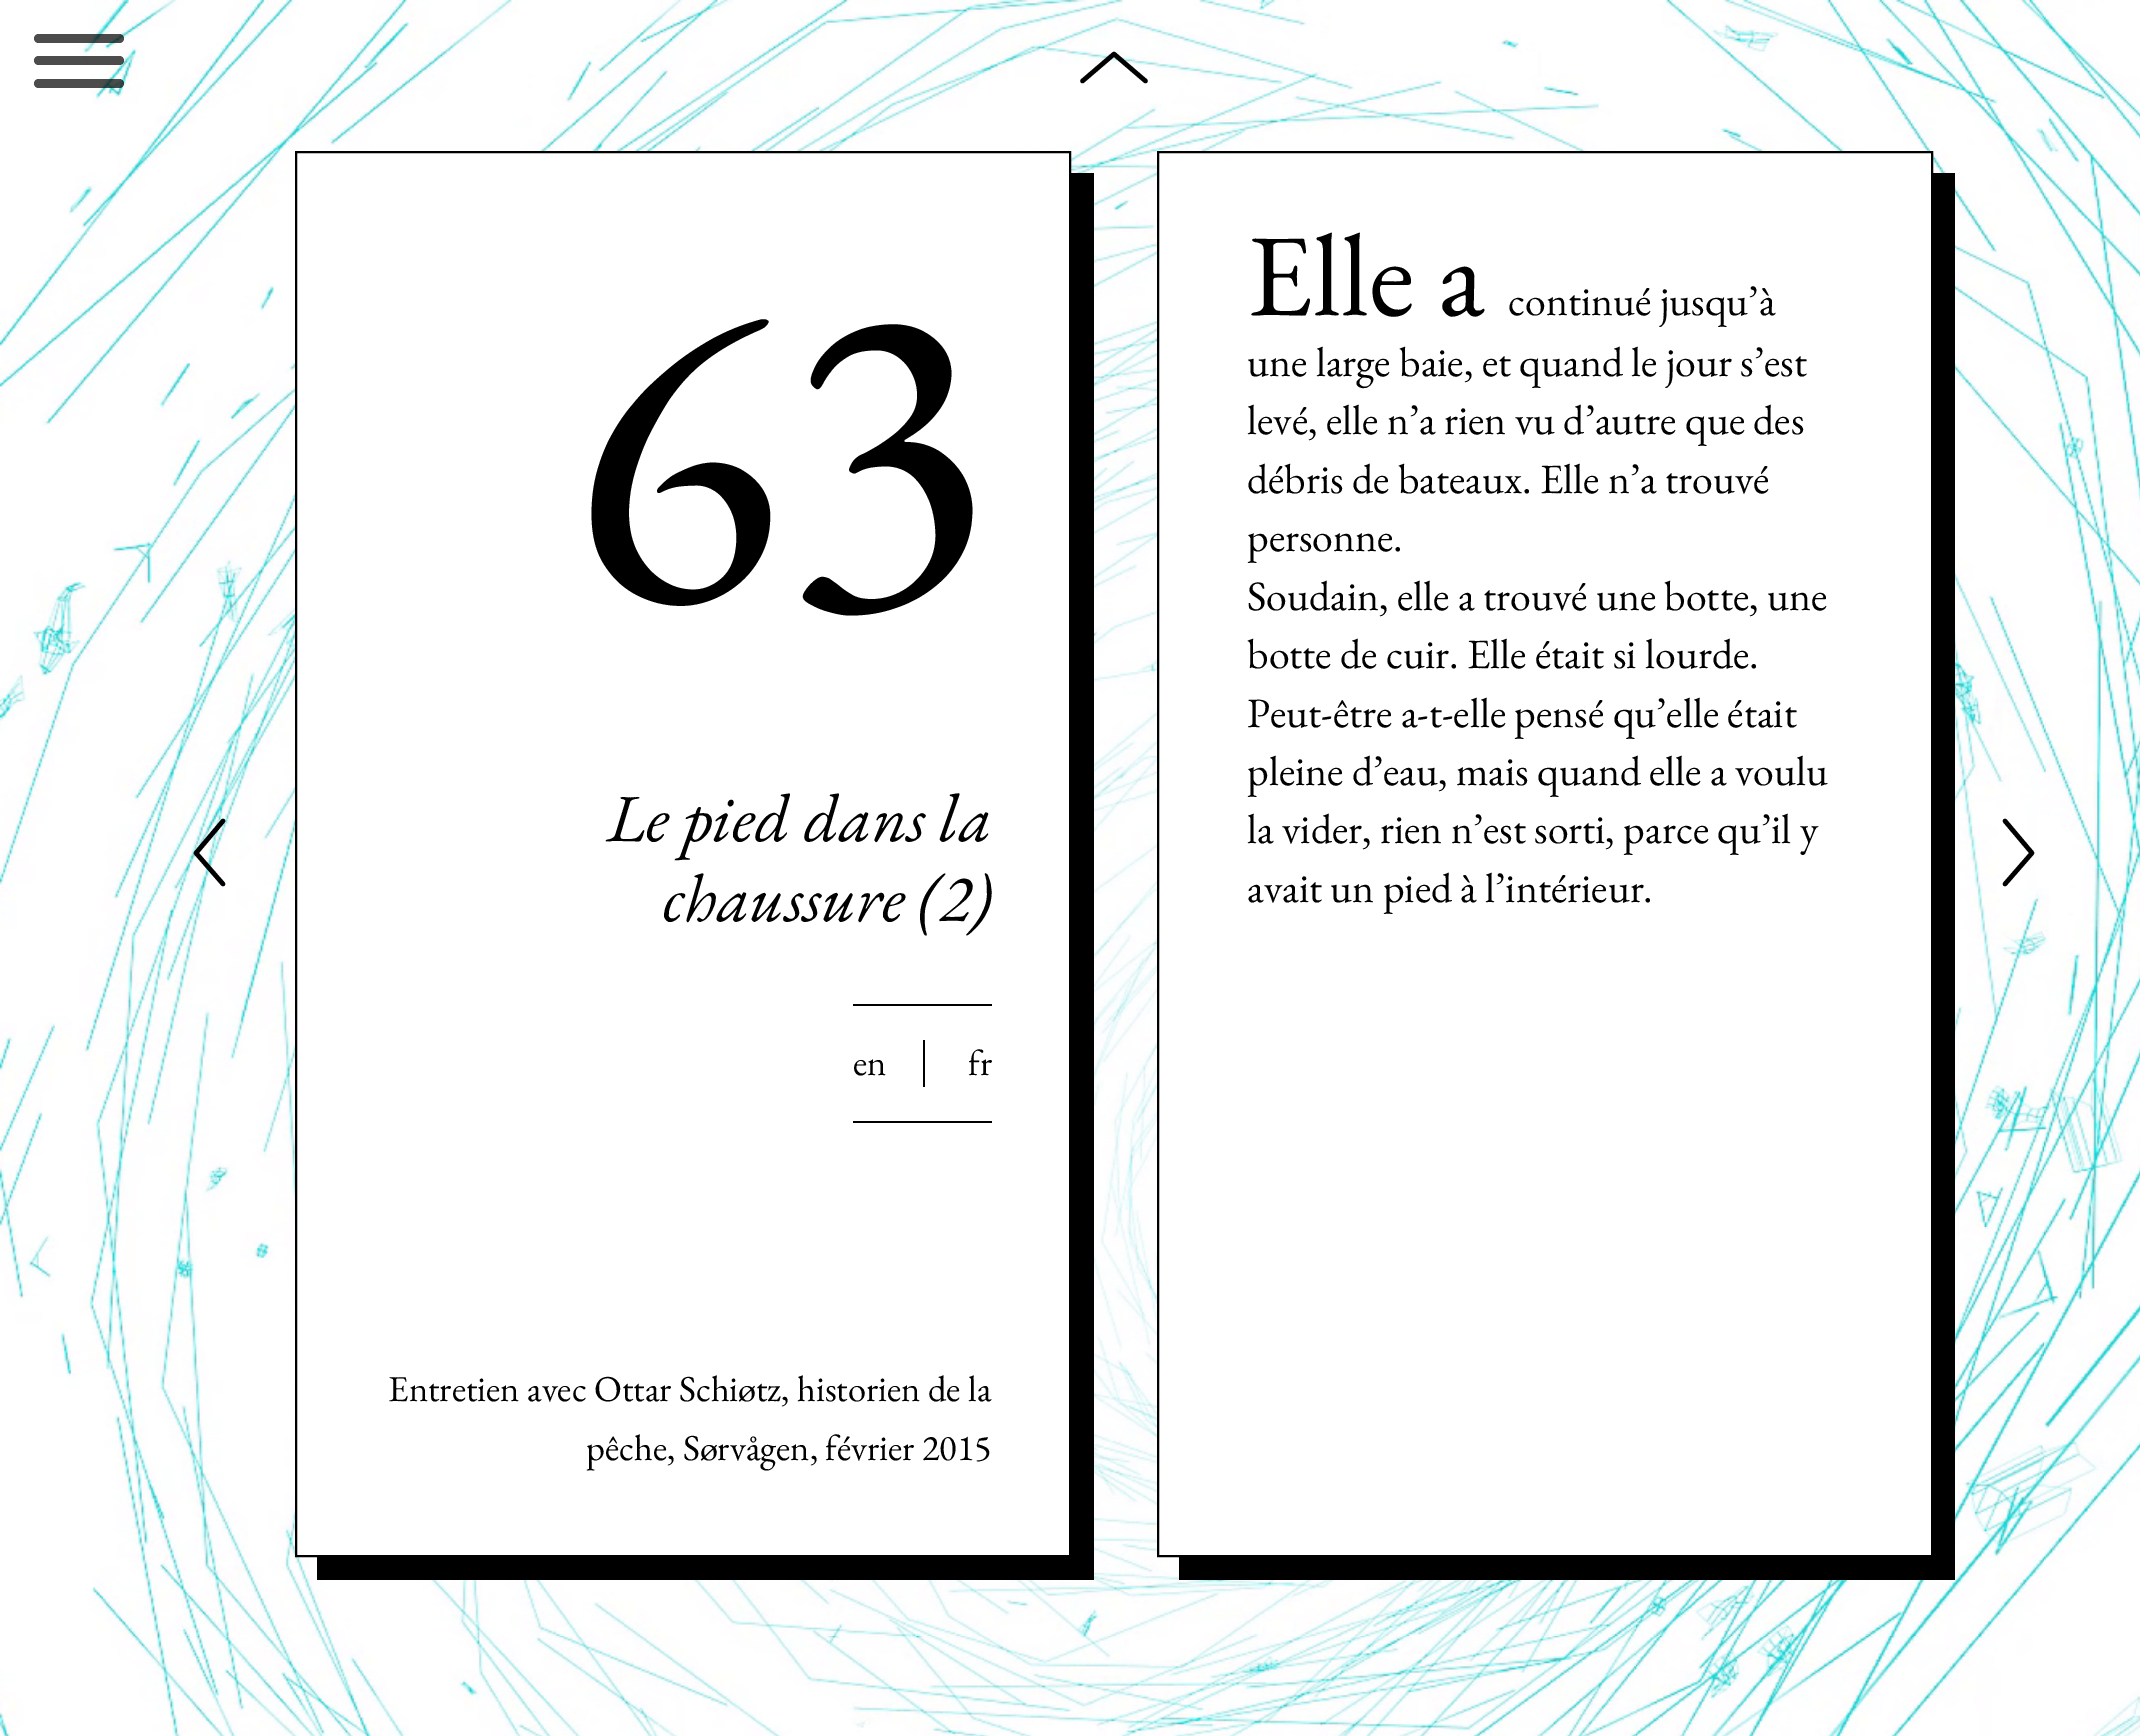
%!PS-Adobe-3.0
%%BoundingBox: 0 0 2140 1736
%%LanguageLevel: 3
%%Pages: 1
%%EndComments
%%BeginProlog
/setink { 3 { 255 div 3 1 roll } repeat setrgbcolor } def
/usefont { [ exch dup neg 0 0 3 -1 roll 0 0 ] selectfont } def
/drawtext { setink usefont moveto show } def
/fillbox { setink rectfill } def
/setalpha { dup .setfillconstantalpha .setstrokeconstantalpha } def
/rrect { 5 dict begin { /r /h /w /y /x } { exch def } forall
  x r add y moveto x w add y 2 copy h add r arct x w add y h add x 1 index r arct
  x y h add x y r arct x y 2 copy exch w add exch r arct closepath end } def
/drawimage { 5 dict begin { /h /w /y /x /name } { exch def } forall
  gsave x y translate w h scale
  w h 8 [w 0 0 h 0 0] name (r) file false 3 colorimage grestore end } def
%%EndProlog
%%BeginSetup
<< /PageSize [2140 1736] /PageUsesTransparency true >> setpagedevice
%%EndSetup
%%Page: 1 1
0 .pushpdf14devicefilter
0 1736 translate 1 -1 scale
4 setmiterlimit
0 0 2140 1736 255 255 255 fillbox
(assets/img1.rgb) 0 0 2140 1736 drawimage
0.7 setalpha
0 0 0 setink
34 56 90 9 4.5 rrect fill
34 34 90 9 4.5 rrect fill
34 79 90 9 4.5 rrect fill
1 setalpha
4.5 setlinewidth
1 setlinecap
1 setlinejoin
1082.5 81 moveto 1114 54 lineto 1145.5 81 lineto stroke
223 884 moveto 196 853 lineto 223 821 lineto stroke
317 1557 moveto 317 1580 lineto 1094 1580 lineto 1094 173 lineto 1071 173 lineto 1071 1557 lineto closepath fill
255 255 255 setink
296 152 moveto 1070 152 lineto 1070 1556 lineto 296 1556 lineto closepath gsave fill grestore
0 0 0 setink
2 setlinewidth
0 setlinecap
0 setlinejoin
stroke
(63) 571 599 /EBGaramond-Regular 438 0 0 0 drawtext
(Le pied dans la) 607 841 /EBGaramond-Italic 67.5 0 0 0 drawtext
(chaussure \(2\)) 663 921 /EBGaramond-Italic 67.5 0 0 0 drawtext
853 1004 139 2 0 0 0 fillbox
853 1121 139 2 0 0 0 fillbox
(en) 853 1075 /EBGaramond-Regular 36.5 0 0 0 drawtext
923 1040 2 47 0 0 0 fillbox
(fr) 968 1075 /EBGaramond-Regular 36.5 0 0 0 drawtext
(Entretien avec Ottar Schiøtz, historien de la) 388 1401 /EBGaramond-Regular 36.5 0 0 0 drawtext
(pêche, Sørvågen, février 2015) 586 1460 /EBGaramond-Regular 36.5 0 0 0 drawtext
1179 1557 moveto 1179 1580 lineto 1955 1580 lineto 1955 173 lineto 1933 173 lineto 1933 1557 lineto closepath fill
255 255 255 setink
1158 152 moveto 1932 152 lineto 1932 1556 lineto 1158 1556 lineto closepath gsave fill grestore
0 0 0 setink
stroke
(Elle a) 1247 315 /EBGaramond-Regular 117 0 0 0 drawtext
(continué jusqu’à) 1508 315 /EBGaramond-Regular 41.75 0 0 0 drawtext
(une large baie, et quand le jour s’est) 1247 376 /EBGaramond-Regular 41.75 0 0 0 drawtext
(levé, elle n’a rien vu d’autre que des) 1247 434 /EBGaramond-Regular 41.75 0 0 0 drawtext
(débris de bateaux. Elle n’a trouvé) 1247 493 /EBGaramond-Regular 41.75 0 0 0 drawtext
(personne.) 1247 551 /EBGaramond-Regular 41.75 0 0 0 drawtext
(Soudain, elle a trouvé une botte, une) 1247 610 /EBGaramond-Regular 41.75 0 0 0 drawtext
(botte de cuir. Elle était si lourde.) 1247 668 /EBGaramond-Regular 41.75 0 0 0 drawtext
(Peut-être a-t-elle pensé qu’elle était) 1247 727 /EBGaramond-Regular 41.75 0 0 0 drawtext
(pleine d’eau, mais quand elle a voulu) 1247 785 /EBGaramond-Regular 41.75 0 0 0 drawtext
(la vider, rien n’est sorti, parce qu’il y) 1247 843 /EBGaramond-Regular 41.75 0 0 0 drawtext
(avait un pied à l’intérieur.) 1247 902 /EBGaramond-Regular 41.75 0 0 0 drawtext
4.5 setlinewidth
1 setlinecap
1 setlinejoin
2005 884 moveto 2032 853 lineto 2005 821 lineto stroke
.poppdf14devicefilter showpage
%%EOF
